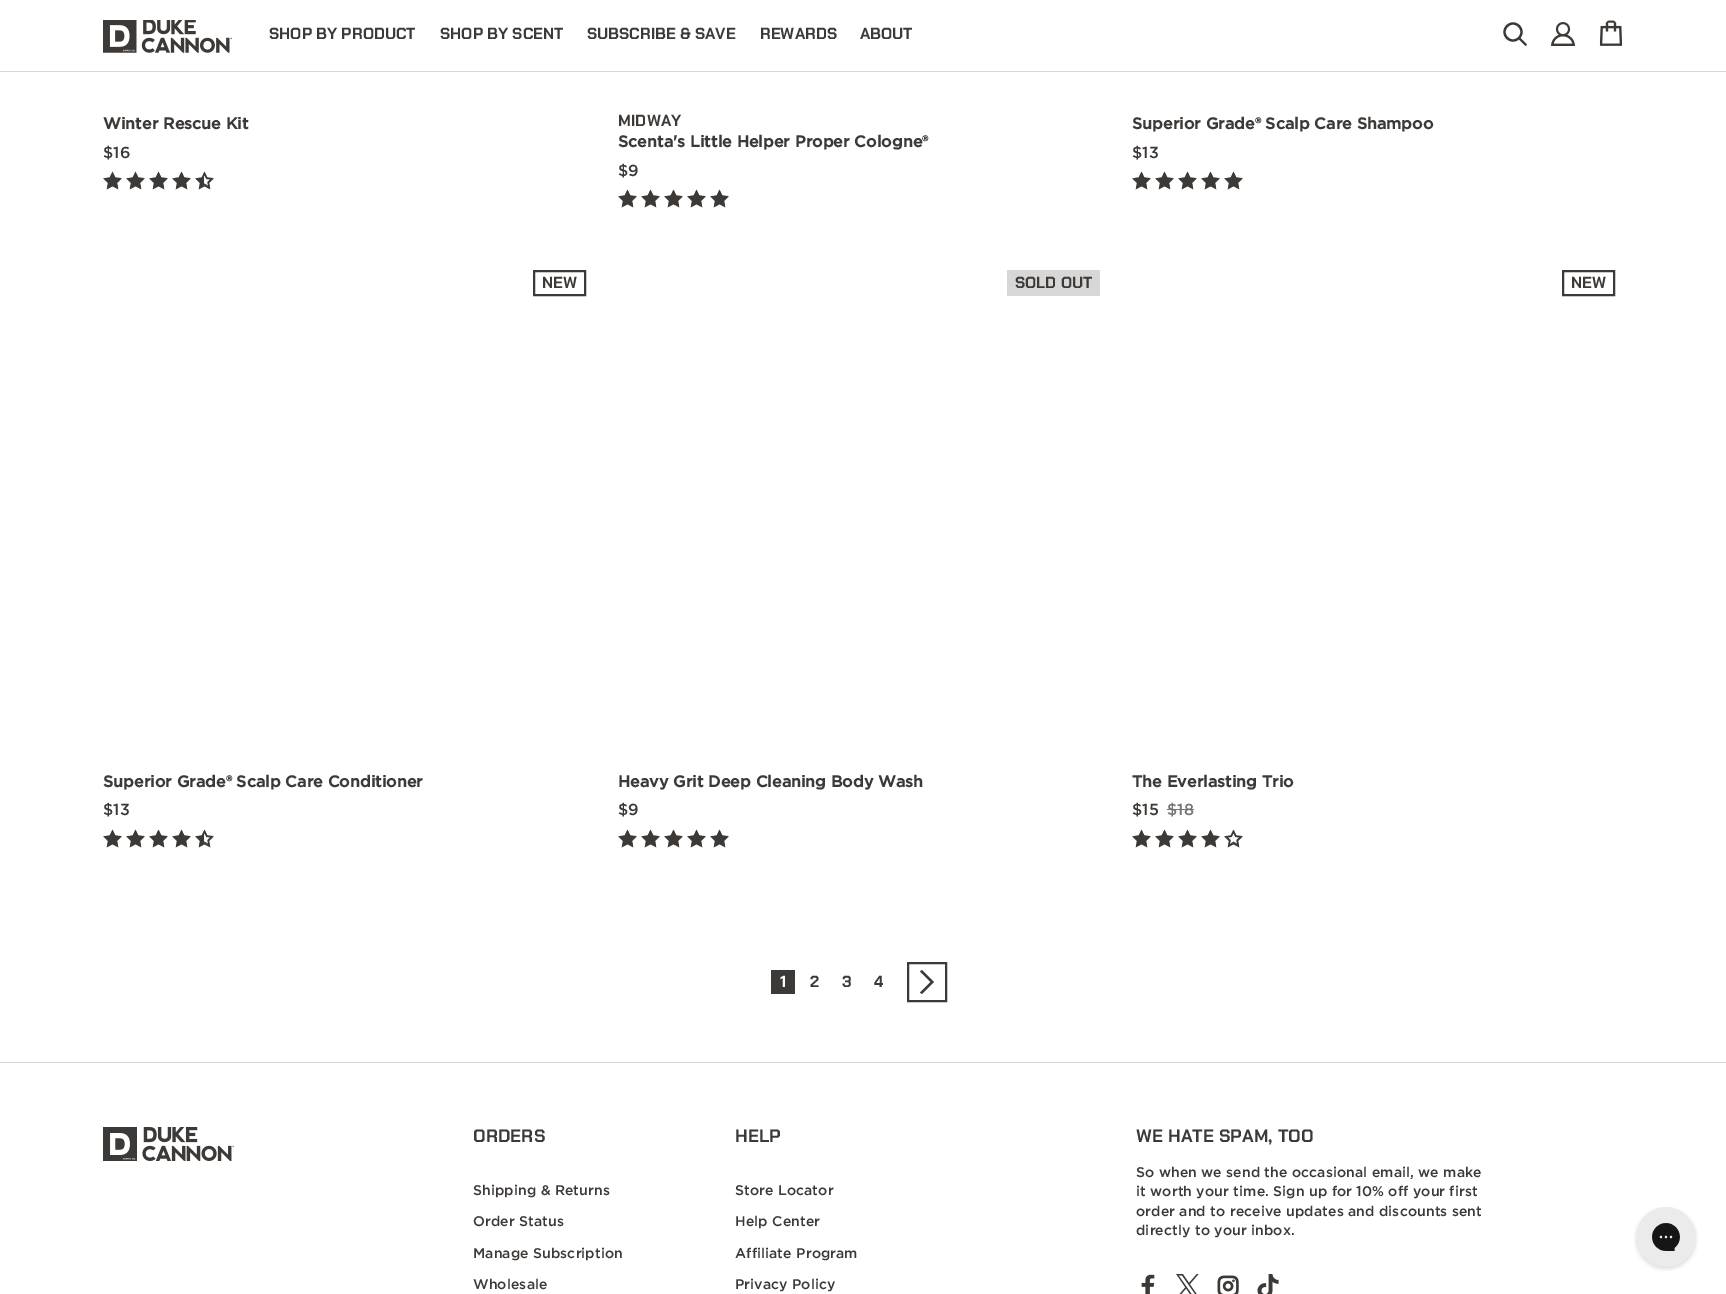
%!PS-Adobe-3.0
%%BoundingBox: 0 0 1726 1294
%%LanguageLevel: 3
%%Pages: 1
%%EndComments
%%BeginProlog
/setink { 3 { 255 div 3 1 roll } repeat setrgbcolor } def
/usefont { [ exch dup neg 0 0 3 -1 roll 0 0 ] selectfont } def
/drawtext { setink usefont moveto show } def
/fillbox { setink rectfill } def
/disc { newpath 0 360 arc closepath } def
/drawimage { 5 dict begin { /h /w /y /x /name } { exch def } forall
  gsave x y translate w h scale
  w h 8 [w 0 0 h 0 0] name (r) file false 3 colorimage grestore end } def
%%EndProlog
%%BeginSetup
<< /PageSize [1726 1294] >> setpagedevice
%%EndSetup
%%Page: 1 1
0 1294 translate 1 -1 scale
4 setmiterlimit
0 0 1726 1294 255 255 255 fillbox
0 71 1726 1 220 216 209 fillbox
(assets/img1.rgb) 103 20 129 33 drawimage
(SHOP BY PRODUCT) 269 39 /ChakraPetch-Bold 16 61 57 54 drawtext
(SHOP BY SCENT) 440 39 /ChakraPetch-Bold 16 61 57 54 drawtext
(SUBSCRIBE & SAVE) 587 39 /ChakraPetch-Bold 16 61 57 54 drawtext
(REWARDS) 760 39 /ChakraPetch-Bold 16 61 57 54 drawtext
(ABOUT) 860 39 /ChakraPetch-Bold 16 61 57 54 drawtext
2.2 setlinewidth
1513 32 8.5 disc stroke
1519.5 37 moveto 1518 38.5 lineto 1525.5 46 lineto 1527 44.5 lineto closepath fill
(assets/img2.rgb) 1551 22 24 24 drawimage
(assets/img3.rgb) 1599 20 24 26 drawimage
(Winter Rescue Kit) 103 129 /Gotham-Bold 16 61 57 54 drawtext
/Gotham-Medium 16 usefont
103 158 moveto 0.1 0 ($16) ashow
(assets/img4.rgb) 103 171 19 19 drawimage
(assets/img5.rgb) 104 172 17 15 drawimage
(assets/img4.rgb) 126 171 19 19 drawimage
(assets/img5.rgb) 127 172 17 15 drawimage
(assets/img4.rgb) 149 171 19 19 drawimage
(assets/img5.rgb) 150 172 17 15 drawimage
(assets/img4.rgb) 172 171 19 19 drawimage
(assets/img5.rgb) 173 172 17 15 drawimage
(assets/img6.rgb) 195 171 19 19 drawimage
(assets/img7.rgb) 196 172 17 15 drawimage
/ChakraPetch-Bold 16 usefont
618 126 moveto 0.1 0 (MIDWAY) ashow
(Scenta's Little Helper Proper Cologne®) 618 147 /Gotham-Bold 16 61 57 54 drawtext
/Gotham-Medium 16 usefont
618 176 moveto 0.1 0 ($9) ashow
(assets/img4.rgb) 618 189 19 19 drawimage
(assets/img5.rgb) 619 190 17 15 drawimage
(assets/img4.rgb) 641 189 19 19 drawimage
(assets/img5.rgb) 642 190 17 15 drawimage
(assets/img4.rgb) 664 189 19 19 drawimage
(assets/img5.rgb) 665 190 17 15 drawimage
(assets/img4.rgb) 687 189 19 19 drawimage
(assets/img5.rgb) 688 190 17 15 drawimage
(assets/img4.rgb) 710 189 19 19 drawimage
(assets/img5.rgb) 711 190 17 15 drawimage
(Superior Grade® Scalp Care Shampoo) 1132 129 /Gotham-Bold 16 61 57 54 drawtext
/Gotham-Medium 16 usefont
1132 158 moveto 0.1 0 ($13) ashow
(assets/img4.rgb) 1132 171 19 19 drawimage
(assets/img5.rgb) 1133 172 17 15 drawimage
(assets/img4.rgb) 1155 171 19 19 drawimage
(assets/img5.rgb) 1156 172 17 15 drawimage
(assets/img4.rgb) 1178 171 19 19 drawimage
(assets/img5.rgb) 1179 172 17 15 drawimage
(assets/img4.rgb) 1201 171 19 19 drawimage
(assets/img5.rgb) 1202 172 17 15 drawimage
(assets/img4.rgb) 1224 171 19 19 drawimage
(assets/img5.rgb) 1225 172 17 15 drawimage
2 setlinewidth
534 271 51 24 rectstroke
(NEW) 542 288 /ChakraPetch-Bold 16 61 57 54 drawtext
(Superior Grade® Scalp Care Conditioner) 103 787 /Gotham-Bold 16 61 57 54 drawtext
/Gotham-Medium 16 usefont
103 815 moveto 0.1 0 ($13) ashow
(assets/img4.rgb) 103 829 19 19 drawimage
(assets/img5.rgb) 104 830 17 15 drawimage
(assets/img4.rgb) 126 829 19 19 drawimage
(assets/img5.rgb) 127 830 17 15 drawimage
(assets/img4.rgb) 149 829 19 19 drawimage
(assets/img5.rgb) 150 830 17 15 drawimage
(assets/img4.rgb) 172 829 19 19 drawimage
(assets/img5.rgb) 173 830 17 15 drawimage
(assets/img6.rgb) 195 829 19 19 drawimage
(assets/img7.rgb) 196 830 17 15 drawimage
1007 270 93 26 216 215 215 fillbox
(SOLD OUT) 1015 288 /ChakraPetch-Bold 16 61 57 54 drawtext
(Heavy Grit Deep Cleaning Body Wash) 618 787 /Gotham-Bold 16 61 57 54 drawtext
/Gotham-Medium 16 usefont
618 815 moveto 0.1 0 ($9) ashow
(assets/img4.rgb) 618 829 19 19 drawimage
(assets/img5.rgb) 619 830 17 15 drawimage
(assets/img4.rgb) 641 829 19 19 drawimage
(assets/img5.rgb) 642 830 17 15 drawimage
(assets/img4.rgb) 664 829 19 19 drawimage
(assets/img5.rgb) 665 830 17 15 drawimage
(assets/img4.rgb) 687 829 19 19 drawimage
(assets/img5.rgb) 688 830 17 15 drawimage
(assets/img4.rgb) 710 829 19 19 drawimage
(assets/img5.rgb) 711 830 17 15 drawimage
1563 271 51 24 rectstroke
(NEW) 1571 288 /ChakraPetch-Bold 16 61 57 54 drawtext
(The Everlasting Trio) 1132 787 /Gotham-Bold 16 61 57 54 drawtext
/Gotham-Medium 16 usefont
1132 815 moveto 0.1 0 ($15) ashow
119 116 114 setink
1167 815 moveto 0.1 0 ($18) ashow
1167 809 27 1 119 116 114 fillbox
(assets/img4.rgb) 1132 829 19 19 drawimage
(assets/img5.rgb) 1133 830 17 15 drawimage
(assets/img4.rgb) 1155 829 19 19 drawimage
(assets/img5.rgb) 1156 830 17 15 drawimage
(assets/img4.rgb) 1178 829 19 19 drawimage
(assets/img5.rgb) 1179 830 17 15 drawimage
(assets/img4.rgb) 1201 829 19 19 drawimage
(assets/img5.rgb) 1202 830 17 15 drawimage
(assets/img8.rgb) 1224 829 19 19 drawimage
(assets/img9.rgb) 1225 830 17 15 drawimage
771 970 24 24 61 57 54 fillbox
/ChakraPetch-Bold 16 usefont
255 255 255 setink
780 987 moveto 0.1 0 (1) ashow
61 57 54 setink
810 987 moveto 0.1 0 (2) ashow
842 987 moveto 0.1 0 (3) ashow
874 987 moveto 0.1 0 (4) ashow
908 963 38 38 rectstroke
922 994 moveto 920 992.5 lineto 930.5 982 lineto 920 971.5 lineto 922 970 lineto 934 982 lineto closepath fill
0 1062 1726 1 216 215 215 fillbox
(assets/img10.rgb) 103 1127 131 34 drawimage
/ChakraPetch-Bold 18 usefont
61 57 54 setink
473 1142 moveto 0.1 0 (ORDERS) ashow
/Gotham-Medium 14 usefont
473 1195 moveto 0.1 0 (Shipping & Returns) ashow
473 1226 moveto 0.1 0 (Order Status) ashow
473 1258 moveto 0.1 0 (Manage Subscription) ashow
473 1289 moveto 0.1 0 (Wholesale) ashow
/ChakraPetch-Bold 18 usefont
735 1142 moveto 0.1 0 (HELP) ashow
/Gotham-Medium 14 usefont
735 1195 moveto 0.1 0 (Store Locator) ashow
735 1226 moveto 0.1 0 (Help Center) ashow
735 1258 moveto 0.1 0 (Affiliate Program) ashow
735 1289 moveto 0.1 0 (Privacy Policy) ashow
/ChakraPetch-Bold 18 usefont
1136 1142 moveto 0.1 0 (WE HATE SPAM, TOO) ashow
/Gotham-Medium 14 usefont
1136 1177 moveto 0.1 0 (So when we send the occasional email, we make) ashow
1136 1196 moveto 0.1 0 (it worth your time. Sign up for 10% off your first) ashow
1136 1216 moveto 0.1 0 (order and to receive updates and discounts sent) ashow
1136 1235 moveto 0.1 0 (directly to your inbox.) ashow
(assets/img11.rgb) 1141 1274 14 20 drawimage
(assets/img12.rgb) 1176 1274 23 20 drawimage
(assets/img13.rgb) 1217 1275 22 19 drawimage
(assets/img14.rgb) 1257 1274 22 20 drawimage
(assets/img15.rgb) 1634 1207 64 64 drawimage
showpage
%%EOF
